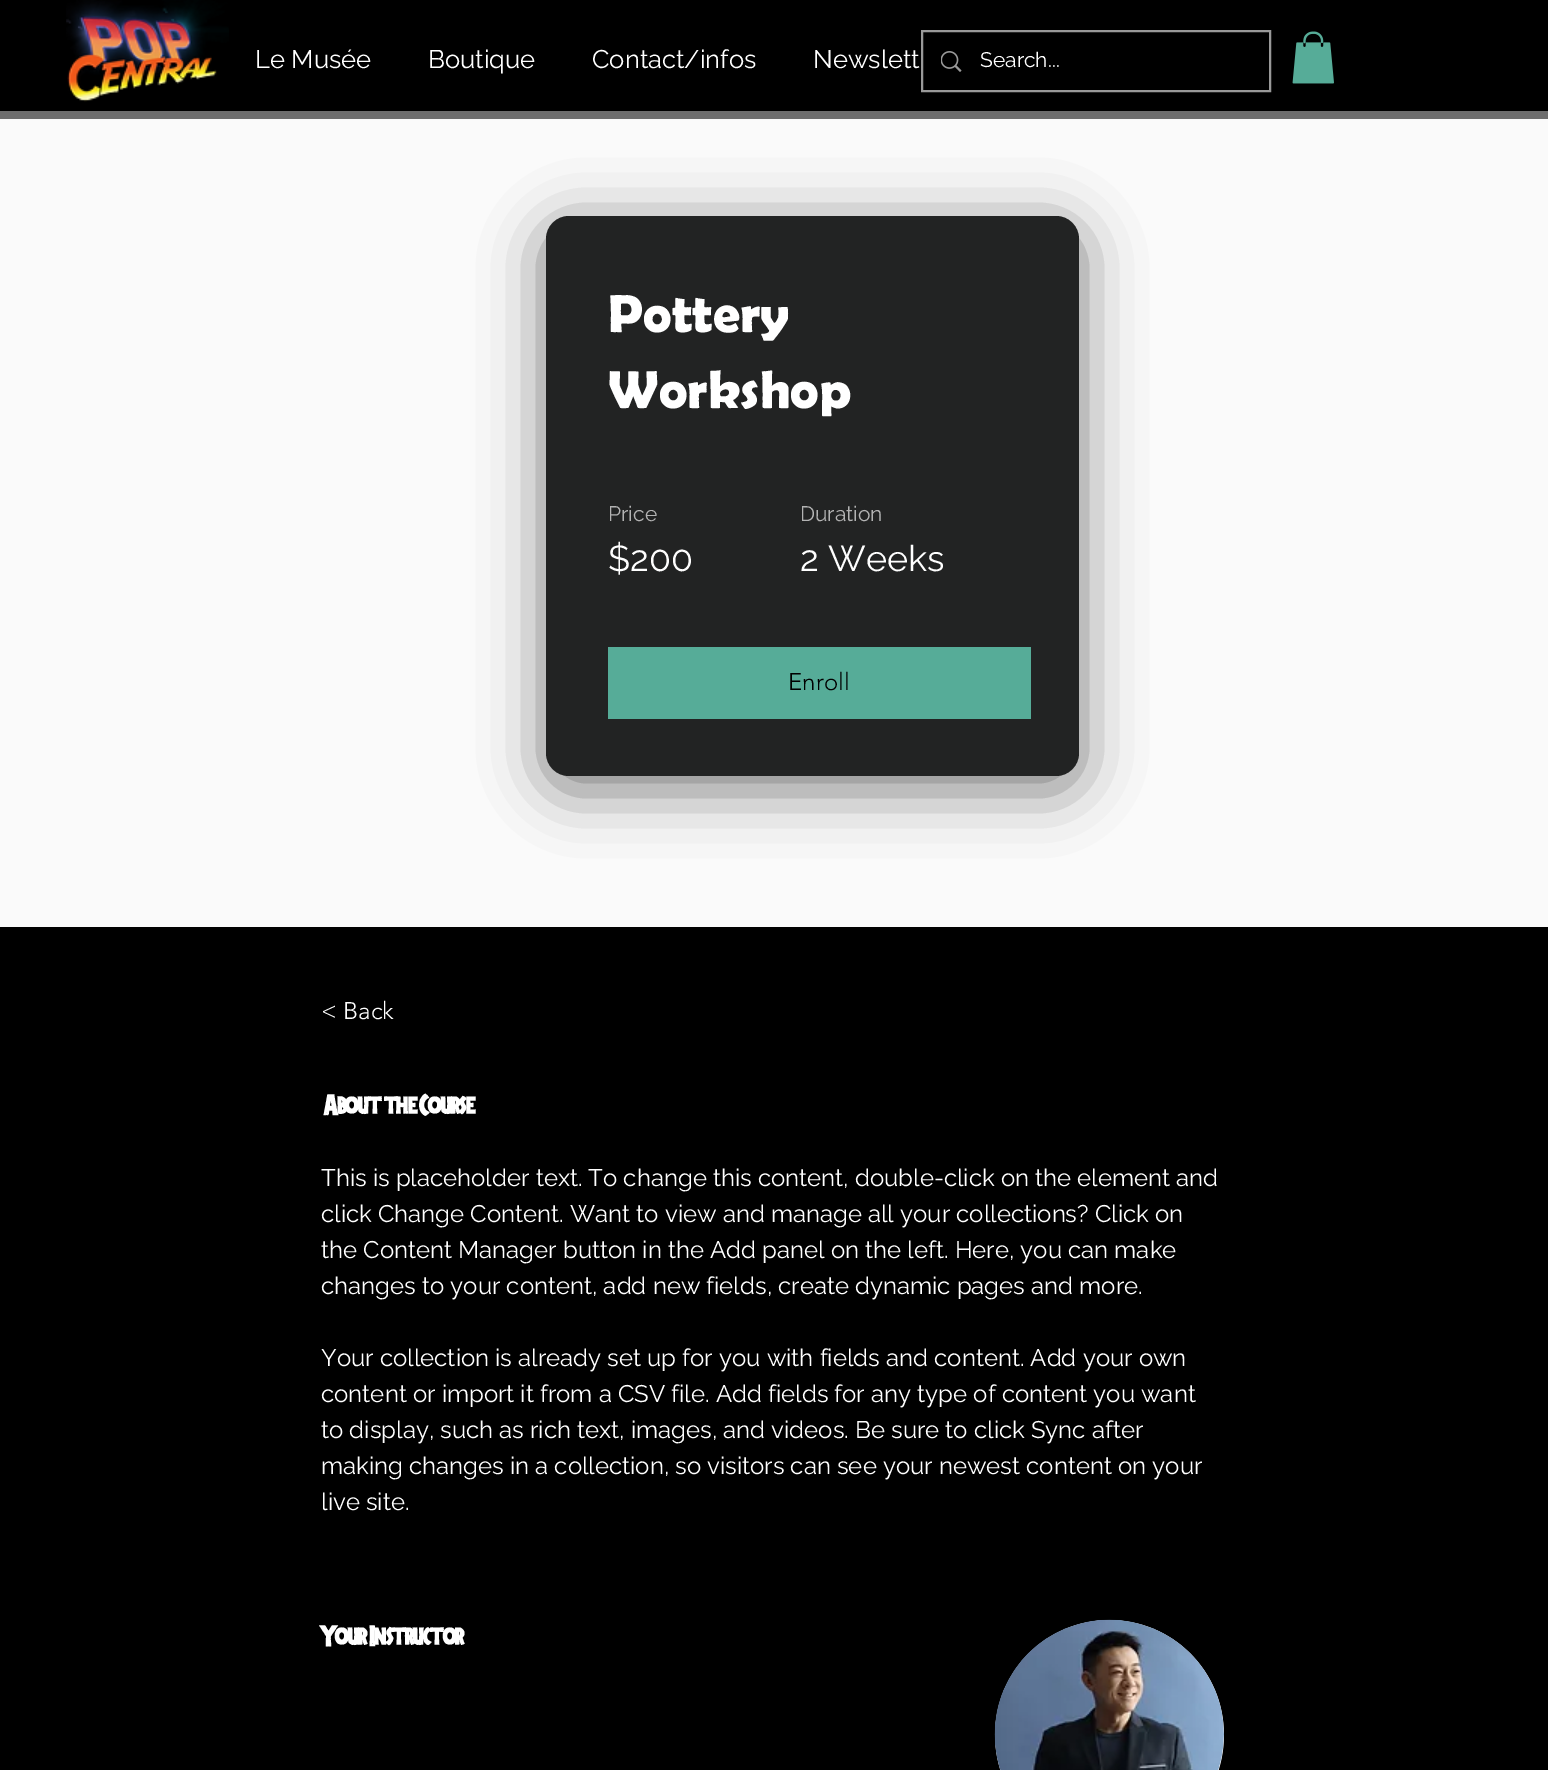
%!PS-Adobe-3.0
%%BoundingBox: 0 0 1548 1770
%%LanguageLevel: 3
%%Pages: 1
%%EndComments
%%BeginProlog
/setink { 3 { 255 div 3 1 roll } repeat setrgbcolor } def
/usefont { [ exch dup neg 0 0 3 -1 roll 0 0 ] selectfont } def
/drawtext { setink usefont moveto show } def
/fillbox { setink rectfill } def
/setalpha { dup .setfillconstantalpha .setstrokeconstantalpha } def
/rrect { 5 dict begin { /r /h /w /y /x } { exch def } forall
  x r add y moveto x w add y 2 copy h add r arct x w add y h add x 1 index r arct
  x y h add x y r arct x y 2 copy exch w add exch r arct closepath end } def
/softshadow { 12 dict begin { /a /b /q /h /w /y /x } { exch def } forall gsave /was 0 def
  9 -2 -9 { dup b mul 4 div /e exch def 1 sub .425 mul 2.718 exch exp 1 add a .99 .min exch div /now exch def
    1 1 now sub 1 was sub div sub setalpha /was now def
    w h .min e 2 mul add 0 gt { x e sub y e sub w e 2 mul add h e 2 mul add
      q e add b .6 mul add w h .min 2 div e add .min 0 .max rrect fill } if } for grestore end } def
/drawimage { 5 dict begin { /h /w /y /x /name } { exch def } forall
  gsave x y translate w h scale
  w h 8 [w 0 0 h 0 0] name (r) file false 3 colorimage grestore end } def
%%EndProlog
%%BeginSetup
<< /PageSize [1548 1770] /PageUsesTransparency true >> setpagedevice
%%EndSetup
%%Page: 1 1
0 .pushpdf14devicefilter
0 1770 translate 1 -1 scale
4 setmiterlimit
0 0 1548 1770 0 0 0 fillbox
(assets/img1.rgb) 66 0 163 102 drawimage
(Le Musée) 255 68 /Raleway-Regular 25.5 255 255 255 drawtext
(Boutique) 428 68 /Raleway-Regular 25.5 255 255 255 drawtext
(Contact/infos) 592 68 /Raleway-Regular 25.5 255 255 255 drawtext
(Newslett) 813 68 /Raleway-Regular 25.5 255 255 255 drawtext
0.6 setalpha
2 setlinewidth
922 31 348 60 rectstroke
1 setalpha
(assets/img2.rgb) 941 51 21 21 drawimage
(Search...) 980 67 /Raleway-Regular 21 255 255 255 drawtext
(assets/img3.rgb) 1292 31 42 53 drawimage
0 111 1548 8 110 110 110 fillbox
0 119 1548 808 250 250 250 fillbox
0 0 0 setink
543 225 539 566 26 30 0.49 softshadow
34 35 35 setink
546 216 533 560 23 rrect fill
(Pottery) 608 332 /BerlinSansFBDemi-SemiBold 54 255 255 255 drawtext
(Workshop) 608 408 /BerlinSansFBDemi-SemiBold 54 255 255 255 drawtext
(Price) 608 521 /Raleway-Regular 21 179 179 179 drawtext
(Duration) 800 521 /Raleway-Regular 21 179 179 179 drawtext
($200) 608 571 /Raleway-Regular 36 255 255 255 drawtext
(2 Weeks) 800 571 /Raleway-Regular 36 255 255 255 drawtext
608 647 423 72 86 172 152 fillbox
(Enroll) 788 690 /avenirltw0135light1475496-Light 24 0 0 0 drawtext
(< Back) 321 1019 /avenirltw0135light1475496-Light 24 255 255 255 drawtext
(About the Course) 324 1115 /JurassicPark-Bold 39 255 255 255 drawtext
(This is placeholder text. To change this content, double-click on the element and) 321 1186 /Raleway-Regular 24 255 255 255 drawtext
(click Change Content. Want to view and manage all your collections? Click on) 321 1222 /Raleway-Regular 24 255 255 255 drawtext
(the Content Manager button in the Add panel on the left. Here, you can make) 321 1258 /Raleway-Regular 24 255 255 255 drawtext
(changes to your content, add new fields, create dynamic pages and more.) 321 1294 /Raleway-Regular 24 255 255 255 drawtext
(Your collection is already set up for you with fields and content. Add your own) 321 1366 /Raleway-Regular 24 255 255 255 drawtext
(content or import it from a CSV file. Add fields for any type of content you want) 321 1402 /Raleway-Regular 24 255 255 255 drawtext
(to display, such as rich text, images, and videos. Be sure to click Sync after) 321 1438 /Raleway-Regular 24 255 255 255 drawtext
(making changes in a collection, so visitors can see your newest content on your) 321 1474 /Raleway-Regular 24 255 255 255 drawtext
(live site.) 321 1510 /Raleway-Regular 24 255 255 255 drawtext
(Your Instructor) 321 1646 /JurassicPark-Bold 39 255 255 255 drawtext
995 1620 229 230 114.5 rrect fill
(assets/img4.rgb) 994 1619 230 151 drawimage
.poppdf14devicefilter showpage
%%EOF
